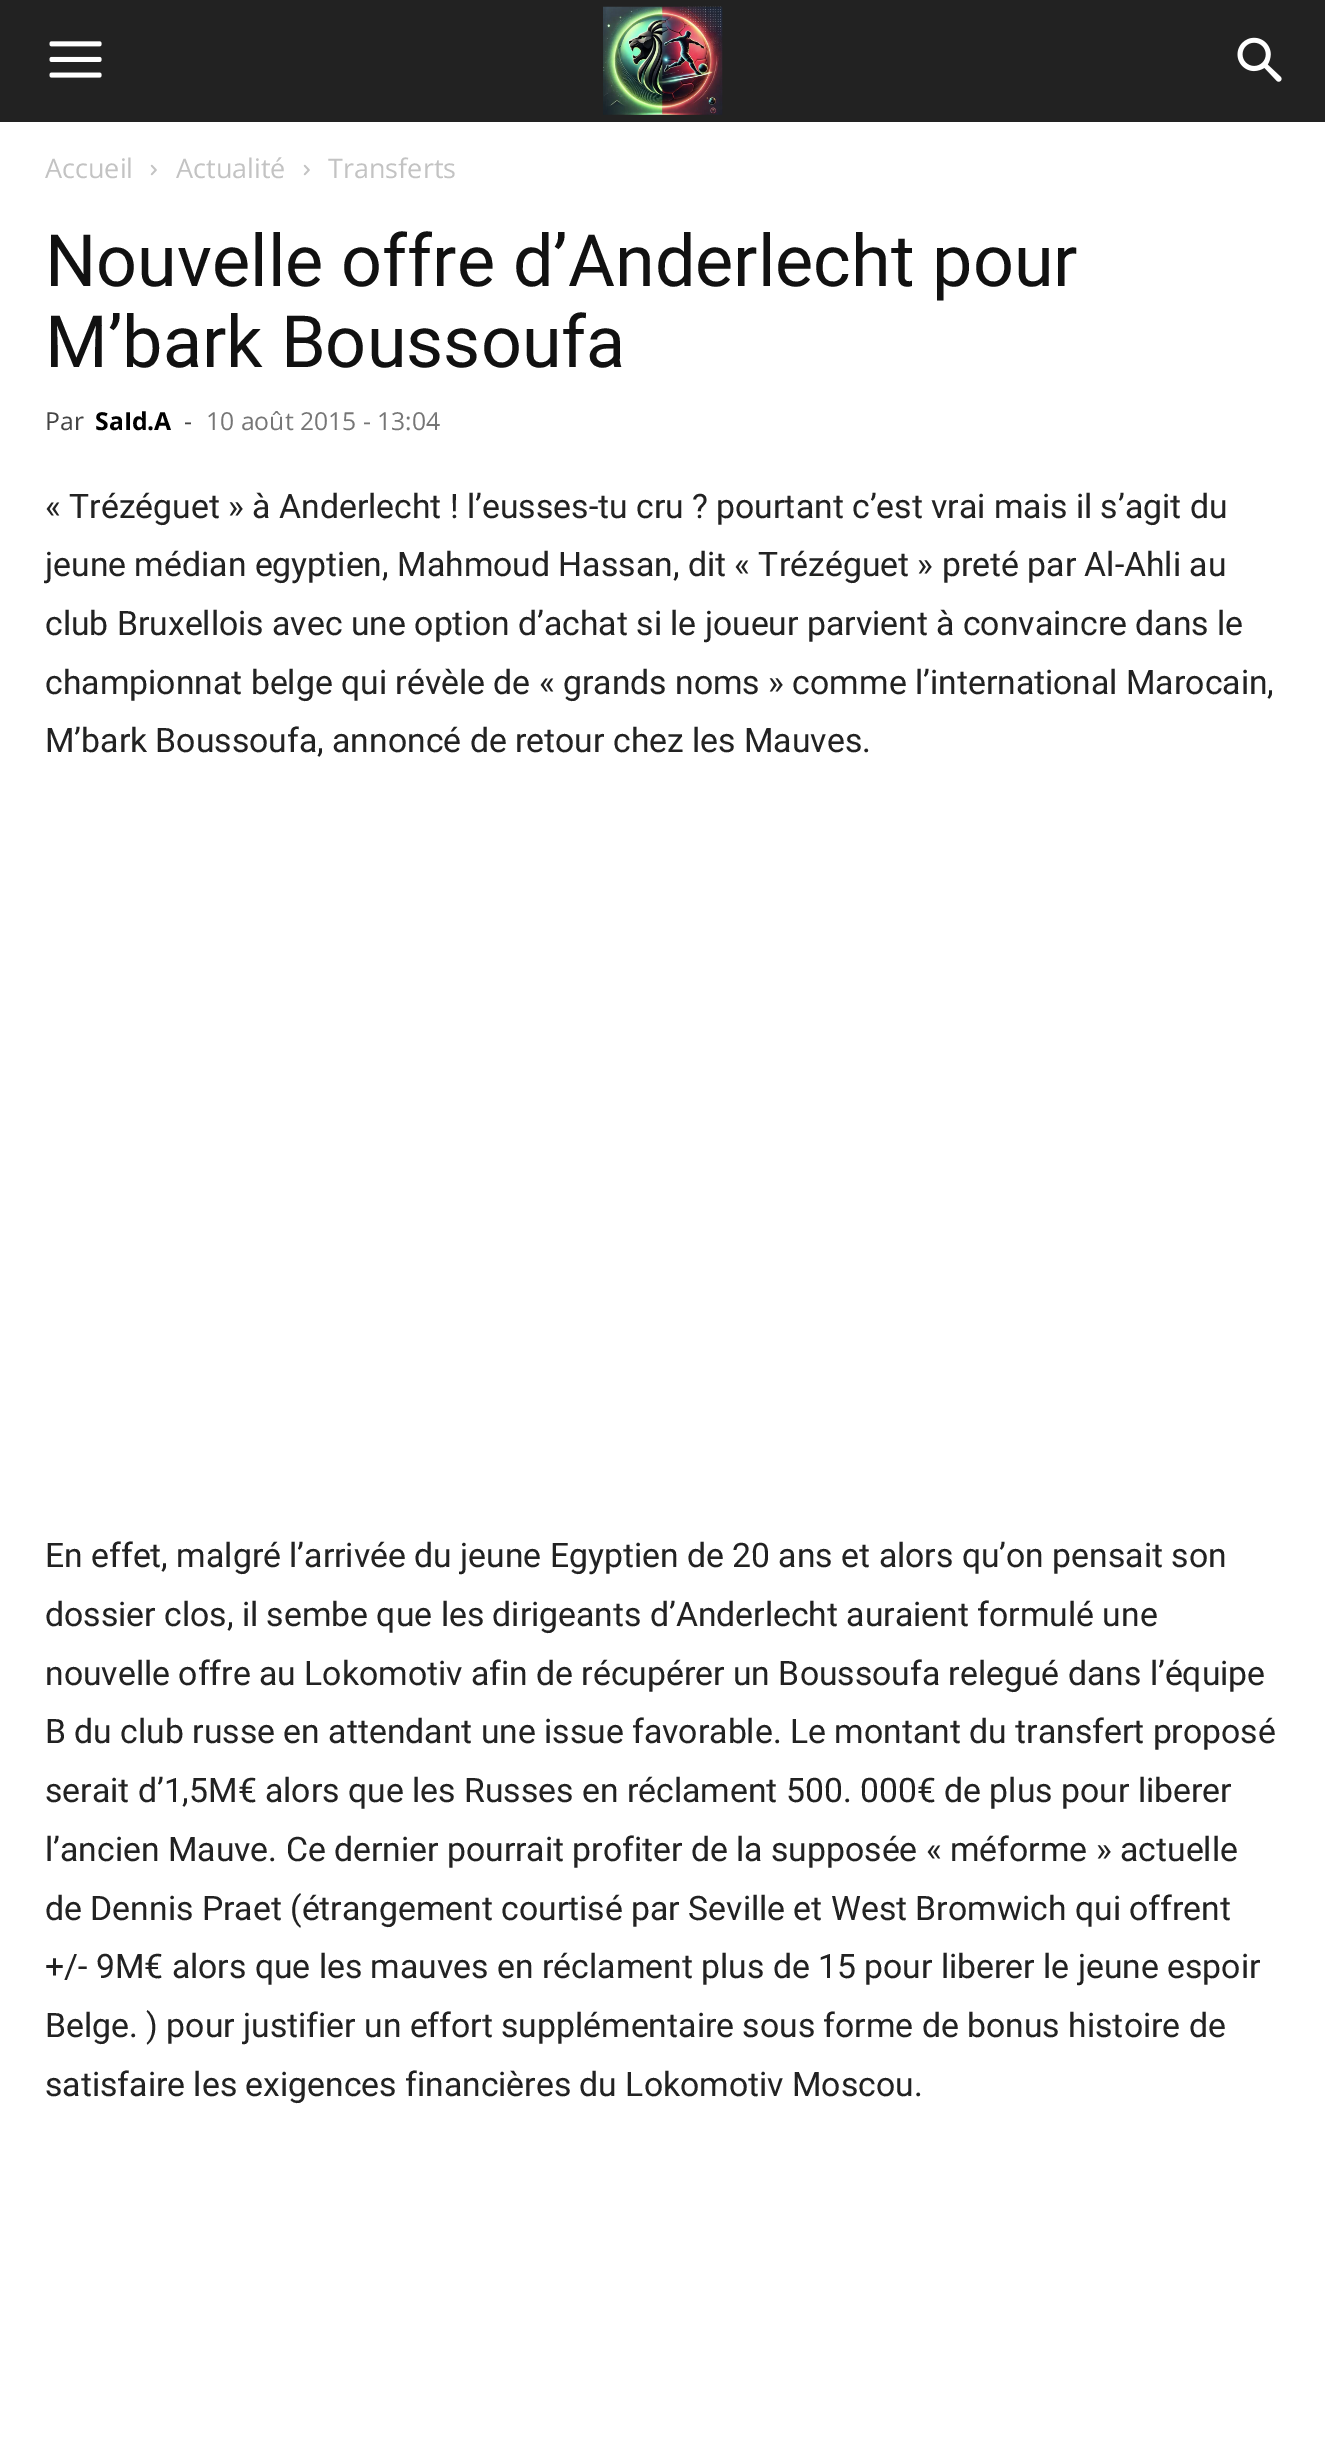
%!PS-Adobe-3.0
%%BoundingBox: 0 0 1325 2446
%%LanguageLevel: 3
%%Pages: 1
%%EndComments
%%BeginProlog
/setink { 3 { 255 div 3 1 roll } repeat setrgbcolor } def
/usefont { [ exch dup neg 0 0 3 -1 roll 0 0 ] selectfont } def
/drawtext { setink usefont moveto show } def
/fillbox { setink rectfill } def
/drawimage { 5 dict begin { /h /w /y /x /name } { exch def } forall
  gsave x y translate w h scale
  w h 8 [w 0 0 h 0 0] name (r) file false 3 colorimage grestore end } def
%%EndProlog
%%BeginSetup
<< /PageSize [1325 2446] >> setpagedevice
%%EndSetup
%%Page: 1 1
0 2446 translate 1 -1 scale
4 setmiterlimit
0 0 1325 2446 255 255 255 fillbox
0 0 1325 122 34 34 34 fillbox
(assets/img1.rgb) 49 41 53 37 drawimage
(assets/img2.rgb) 603 6 120 109 drawimage
(assets/img3.rgb) 1237 37 45 45 drawimage
(Accueil) 45 178 /OpenSans-Regular 27 195 195 195 drawtext
(assets/img4.rgb) 150 164 7 12 drawimage
(Actualité) 176 178 /OpenSans-Regular 27 195 195 195 drawtext
(assets/img4.rgb) 303 164 7 12 drawimage
(Transferts) 328 178 /OpenSans-Regular 27 195 195 195 drawtext
(Nouvelle offre d’Anderlecht pour) 45 286 /Roboto-Regular 72 17 17 17 drawtext
(M’bark Boussoufa) 45 367 /Roboto-Regular 72 17 17 17 drawtext
(Par) 45 430 /OpenSans-Regular 24.75 68 68 68 drawtext
(SaId.A) 95 430 /OpenSans-Bold 24.75 0 0 0 drawtext
(-) 184 430 /OpenSans-Regular 24.75 68 68 68 drawtext
(10 août 2015 - 13:04) 206 430 /OpenSans-Regular 24.75 118 118 118 drawtext
(« Trézéguet » à Anderlecht ! l’eusses-tu cru ? pourtant c’est vrai mais il s’agit du) 45 518 /Roboto-Regular 33.75 34 34 34 drawtext
(jeune médian egyptien, Mahmoud Hassan, dit « Trézéguet » preté par Al-Ahli au) 45 576 /Roboto-Regular 33.75 34 34 34 drawtext
(club Bruxellois avec une option d’achat si le joueur parvient à convaincre dans le) 45 635 /Roboto-Regular 33.75 34 34 34 drawtext
(championnat belge qui révèle de « grands noms » comme l’international Marocain,) 45 694 /Roboto-Regular 33.75 34 34 34 drawtext
(M’bark Boussoufa, annoncé de retour chez les Mauves.) 45 752 /Roboto-Regular 33.75 34 34 34 drawtext
(En effet, malgré l’arrivée du jeune Egyptien de 20 ans et alors qu’on pensait son) 45 1567 /Roboto-Regular 33.75 34 34 34 drawtext
(dossier clos, il sembe que les dirigeants d’Anderlecht auraient formulé une) 45 1626 /Roboto-Regular 33.75 34 34 34 drawtext
(nouvelle offre au Lokomotiv afin de récupérer un Boussoufa relegué dans l’équipe) 45 1685 /Roboto-Regular 33.75 34 34 34 drawtext
(B du club russe en attendant une issue favorable. Le montant du transfert proposé) 45 1743 /Roboto-Regular 33.75 34 34 34 drawtext
(serait d’1,5M€ alors que les Russes en réclament 500. 000€ de plus pour liberer) 45 1802 /Roboto-Regular 33.75 34 34 34 drawtext
(l’ancien Mauve. Ce dernier pourrait profiter de la supposée « méforme » actuelle) 45 1861 /Roboto-Regular 33.75 34 34 34 drawtext
(de Dennis Praet \(étrangement courtisé par Seville et West Bromwich qui offrent) 45 1920 /Roboto-Regular 33.75 34 34 34 drawtext
(+/- 9M€ alors que les mauves en réclament plus de 15 pour liberer le jeune espoir) 45 1978 /Roboto-Regular 33.75 34 34 34 drawtext
(Belge. \) pour justifier un effort supplémentaire sous forme de bonus histoire de) 45 2037 /Roboto-Regular 33.75 34 34 34 drawtext
(satisfaire les exigences financières du Lokomotiv Moscou.) 45 2096 /Roboto-Regular 33.75 34 34 34 drawtext
showpage
%%EOF
